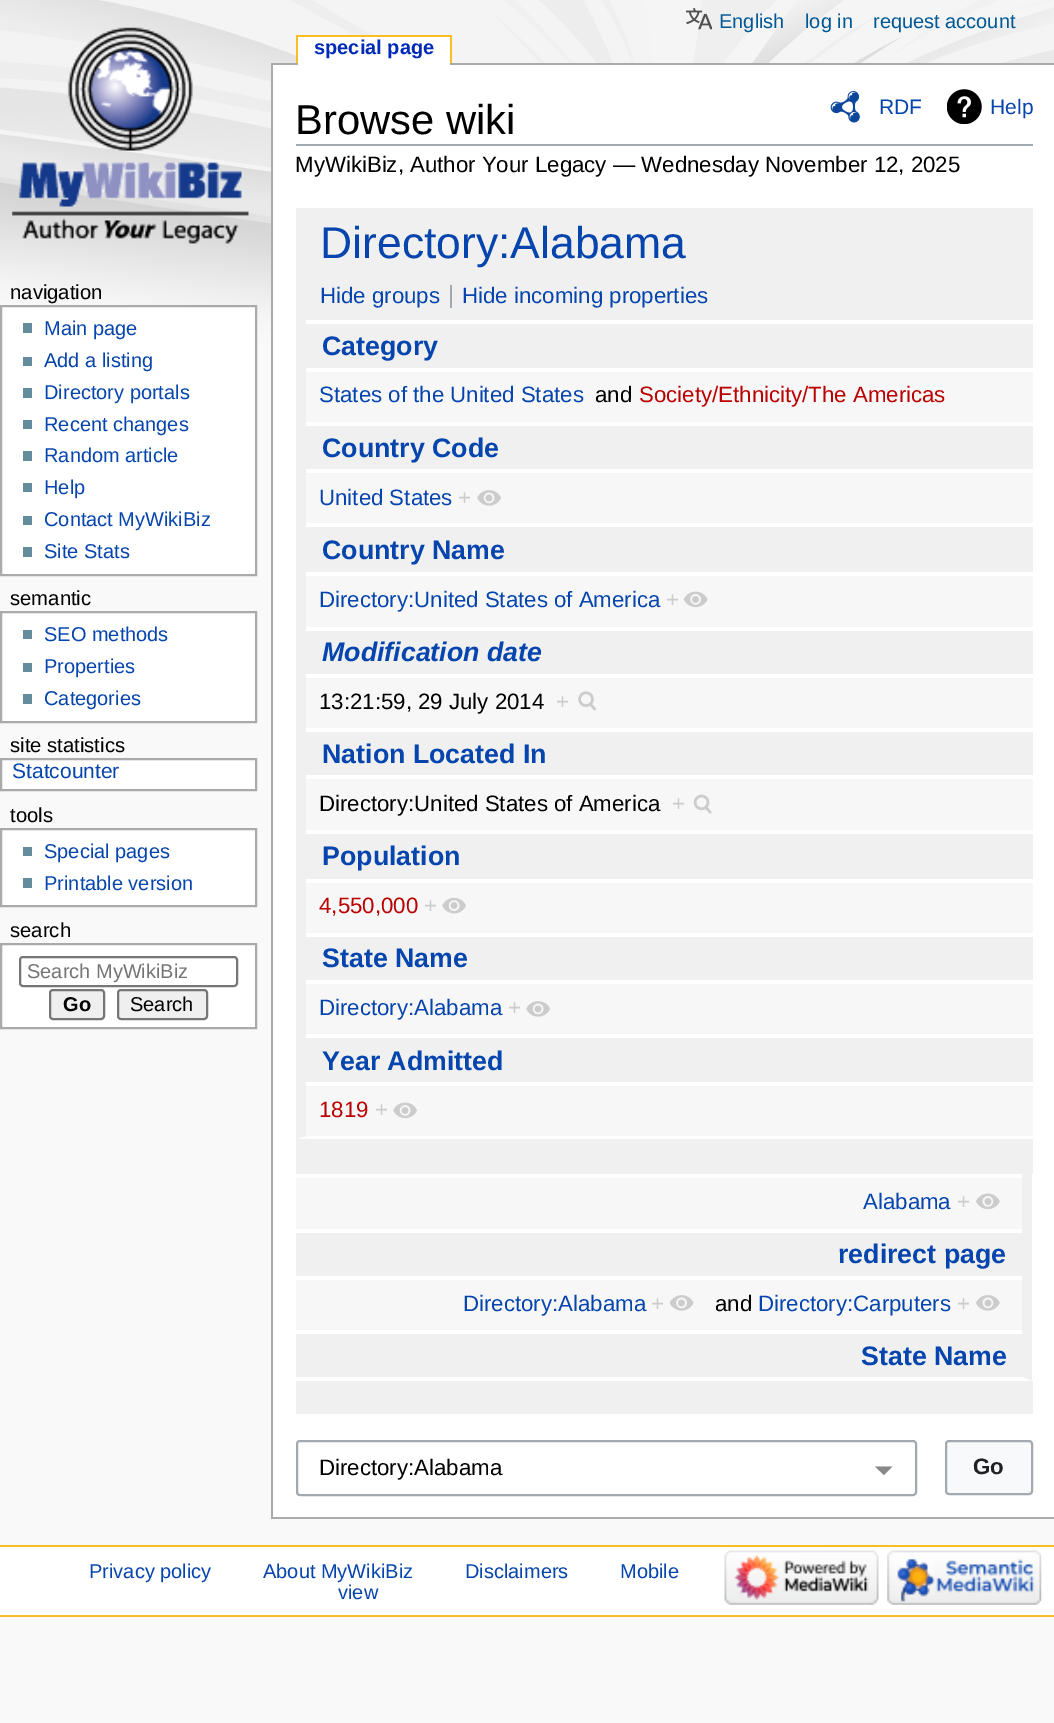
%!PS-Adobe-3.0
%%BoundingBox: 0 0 1054 1723
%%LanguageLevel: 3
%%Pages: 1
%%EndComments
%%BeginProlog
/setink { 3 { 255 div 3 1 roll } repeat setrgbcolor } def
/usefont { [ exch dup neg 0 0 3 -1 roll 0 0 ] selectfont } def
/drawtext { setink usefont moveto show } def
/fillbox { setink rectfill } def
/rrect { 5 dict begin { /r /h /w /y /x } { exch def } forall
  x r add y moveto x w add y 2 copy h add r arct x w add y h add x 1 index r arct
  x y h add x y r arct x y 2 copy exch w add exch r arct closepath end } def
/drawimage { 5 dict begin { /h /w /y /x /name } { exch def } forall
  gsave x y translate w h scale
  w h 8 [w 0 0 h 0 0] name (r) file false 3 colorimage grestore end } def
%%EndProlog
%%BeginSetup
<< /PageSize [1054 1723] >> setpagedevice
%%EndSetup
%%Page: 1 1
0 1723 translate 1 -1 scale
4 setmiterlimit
0 0 1054 1723 249 249 249 fillbox
(assets/img1.rgb) 0 0 1054 367 drawimage
(assets/img2.rgb) 686 8 26 22 drawimage
(English) 719 28 /LiberationSans-Regular 20 0 88 150 drawtext
(log in) 805 28 /LiberationSans-Regular 20 0 88 150 drawtext
(request account) 873 28 /LiberationSans-Regular 20 0 88 150 drawtext
(assets/img3.rgb) 12 27 237 217 drawimage
271 63 783 2 170 170 170 fillbox
298 37 152 28 255 255 255 fillbox
(special page) 314 54 /LiberationSans-Bold 20 0 43 184 drawtext
296 35 156 2 250 189 35 fillbox
450 35 2 28 250 189 35 fillbox
296 35 2 28 250 189 35 fillbox
(navigation) 10 299 /LiberationSans-Regular 20.25 0 0 0 drawtext
255 255 255 setink
1 306 moveto 256 306 lineto 256 575 lineto 1 575 lineto closepath gsave fill grestore
170 170 170 setink
2 setlinewidth
stroke
23 323 9 10 99 140 156 fillbox
(Main page) 44 335 /LiberationSans-Regular 20 6 69 173 drawtext
23 357 9 9 99 140 156 fillbox
(Add a listing) 44 367 /LiberationSans-Regular 20 6 69 173 drawtext
23 388 9 10 99 140 156 fillbox
(Directory portals) 44 399 /LiberationSans-Regular 20 6 69 173 drawtext
23 420 9 9 99 140 156 fillbox
(Recent changes) 44 431 /LiberationSans-Regular 20 6 69 173 drawtext
23 451 9 10 99 140 156 fillbox
(Random article) 44 462 /LiberationSans-Regular 20 6 69 173 drawtext
23 483 9 9 99 140 156 fillbox
(Help) 44 494 /LiberationSans-Regular 20 6 69 173 drawtext
23 516 9 9 99 140 156 fillbox
(Contact MyWikiBiz) 44 526 /LiberationSans-Regular 20 6 69 173 drawtext
23 547 9 10 99 140 156 fillbox
(Site Stats) 44 558 /LiberationSans-Regular 20 6 69 173 drawtext
(semantic) 10 605 /LiberationSans-Regular 20.25 0 0 0 drawtext
255 255 255 setink
1 612 moveto 256 612 lineto 256 722 lineto 1 722 lineto closepath gsave fill grestore
170 170 170 setink
stroke
23 630 9 9 99 140 156 fillbox
(SEO methods) 44 641 /LiberationSans-Regular 20 6 69 173 drawtext
23 663 9 9 99 140 156 fillbox
(Properties) 44 673 /LiberationSans-Regular 20 6 69 173 drawtext
23 694 9 10 99 140 156 fillbox
(Categories) 44 705 /LiberationSans-Regular 20 6 69 173 drawtext
(site statistics) 10 752 /LiberationSans-Regular 20.25 0 0 0 drawtext
255 255 255 setink
1 759 moveto 256 759 lineto 256 790 lineto 1 790 lineto closepath gsave fill grestore
170 170 170 setink
stroke
(Statcounter) 12 778 /LiberationSans-Regular 21 6 69 173 drawtext
(tools) 10 822 /LiberationSans-Regular 20.25 0 0 0 drawtext
255 255 255 setink
1 829 moveto 256 829 lineto 256 906 lineto 1 906 lineto closepath gsave fill grestore
170 170 170 setink
stroke
23 847 9 9 99 140 156 fillbox
(Special pages) 44 858 /LiberationSans-Regular 20 6 69 173 drawtext
23 878 9 10 99 140 156 fillbox
(Printable version) 44 890 /LiberationSans-Regular 20 6 69 173 drawtext
(search) 10 937 /LiberationSans-Regular 20.25 0 0 0 drawtext
255 255 255 setink
1 944 moveto 256 944 lineto 256 1028 lineto 1 1028 lineto closepath gsave fill grestore
170 170 170 setink
stroke
118 118 118 setink
20 957 217 29 3 rrect stroke
(Search MyWikiBiz) 27 978 /LiberationSans-Regular 20 117 117 117 drawtext
239 239 239 setink
50 990 54 29 3 rrect gsave fill grestore
118 118 118 setink
stroke
(Go) 63 1011 /LiberationSans-Bold 20 0 0 0 drawtext
239 239 239 setink
118 990 89 29 3 rrect gsave fill grestore
118 118 118 setink
stroke
(Search) 130 1011 /LiberationSans-Regular 20 0 0 0 drawtext
273 65 781 1452 255 255 255 fillbox
271 1517 783 2 170 170 170 fillbox
271 63 2 1456 170 170 170 fillbox
296 144 737 2 162 169 177 fillbox
(Browse wiki) 295 134 /LiberationSans-Regular 41.75 0 0 0 drawtext
(assets/img4.rgb) 830 91 30 32 drawimage
(RDF) 879 114 /LiberationSans-Regular 21 6 69 173 drawtext
(assets/img5.rgb) 947 89 35 35 drawimage
(Help) 990 114 /LiberationSans-Regular 21 6 69 173 drawtext
(MyWikiBiz, Author Your Legacy — Wednesday November 12, 2025) 295 172 /LiberationSans-Regular 22.25 0 0 0 drawtext
296 208 737 67 240 240 240 fillbox
(Directory:Alabama) 320 258 /LiberationSans-Regular 44.5 6 69 173 drawtext
296 275 737 45 240 240 240 fillbox
(Hide groups) 320 303 /LiberationSans-Regular 22.25 6 69 173 drawtext
450 285 2 23 162 169 177 fillbox
(Hide incoming properties) 462 303 /LiberationSans-Regular 22.25 6 69 173 drawtext
240 240 240 setink
296 1139 moveto 296 320 lineto 306 320 lineto 306 1136 lineto closepath fill
306 324 727 44 240 240 240 fillbox
(Category) 322 355 /LiberationSans-Bold 26.75 6 69 173 drawtext
306 372 727 50 247 247 247 fillbox
(States of the United States) 319 402 /LiberationSans-Regular 22.25 6 69 173 drawtext
(and) 595 402 /LiberationSans-Regular 22.25 0 0 0 drawtext
(Society/Ethnicity/The Americas) 639 402 /LiberationSans-Regular 22.25 186 0 0 drawtext
306 426 727 43 240 240 240 fillbox
(Country Code) 322 457 /LiberationSans-Bold 26.75 6 69 173 drawtext
306 473 727 50 247 247 247 fillbox
(United States) 319 505 /LiberationSans-Regular 22.25 6 69 173 drawtext
(+) 458 505 /LiberationSans-Regular 22.25 204 204 204 drawtext
(assets/img6.rgb) 477 490 24 16 drawimage
306 527 727 45 240 240 240 fillbox
(Country Name) 322 559 /LiberationSans-Bold 26.75 6 69 173 drawtext
306 576 727 51 247 247 247 fillbox
(Directory:United States of America) 319 607 /LiberationSans-Regular 22.25 6 69 173 drawtext
(+) 666 607 /LiberationSans-Regular 22.25 204 204 204 drawtext
(assets/img7.rgb) 683 591 25 17 drawimage
306 631 727 43 240 240 240 fillbox
(Modification date) 322 661 /LiberationSans-BoldItalic 26.75 6 69 173 drawtext
306 678 727 50 247 247 247 fillbox
(13:21:59, 29 July 2014) 319 709 /LiberationSans-Regular 22.25 0 0 0 drawtext
(+) 556 709 /LiberationSans-Regular 22.25 204 204 204 drawtext
(assets/img8.rgb) 578 691 18 20 drawimage
306 732 727 43 240 240 240 fillbox
(Nation Located In) 322 763 /LiberationSans-Bold 26.75 6 69 173 drawtext
306 779 727 51 247 247 247 fillbox
(Directory:United States of America) 319 811 /LiberationSans-Regular 22.25 0 0 0 drawtext
(+) 672 811 /LiberationSans-Regular 22.25 204 204 204 drawtext
(assets/img9.rgb) 693 794 19 20 drawimage
306 834 727 45 240 240 240 fillbox
(Population) 322 865 /LiberationSans-Bold 26.75 6 69 173 drawtext
306 883 727 50 247 247 247 fillbox
(4,550,000) 319 913 /LiberationSans-Regular 22.25 186 0 0 drawtext
(+) 424 913 /LiberationSans-Regular 22.25 204 204 204 drawtext
(assets/img10.rgb) 442 897 24 17 drawimage
306 937 727 43 240 240 240 fillbox
(State Name) 322 967 /LiberationSans-Bold 26.75 6 69 173 drawtext
306 984 727 50 247 247 247 fillbox
(Directory:Alabama) 319 1015 /LiberationSans-Regular 22.25 6 69 173 drawtext
(+) 508 1015 /LiberationSans-Regular 22.25 204 204 204 drawtext
(assets/img6.rgb) 526 1001 24 16 drawimage
306 1038 727 44 240 240 240 fillbox
(Year Admitted) 322 1070 /LiberationSans-Bold 26.75 6 69 173 drawtext
306 1086 727 50 247 247 247 fillbox
(1819) 319 1117 /LiberationSans-Regular 22.25 186 0 0 drawtext
(+) 375 1117 /LiberationSans-Regular 22.25 204 204 204 drawtext
(assets/img11.rgb) 393 1102 24 17 drawimage
296 1139 737 35 240 240 240 fillbox
1032 1174 moveto 1032 1381 lineto 1022 1377 lineto 1022 1174 lineto closepath fill
255 255 255 setink
1032 1381 moveto 296 1381 lineto 296 1377 lineto 1022 1377 lineto closepath fill
296 1178 726 51 247 247 247 fillbox
(Alabama) 863 1209 /LiberationSans-Regular 22.25 6 69 173 drawtext
(+) 957 1209 /LiberationSans-Regular 22.25 204 204 204 drawtext
(assets/img12.rgb) 976 1193 24 17 drawimage
296 1233 726 43 240 240 240 fillbox
(redirect page) 838 1263 /LiberationSans-Bold 26.75 6 69 173 drawtext
296 1280 726 50 247 247 247 fillbox
(Directory:Alabama) 463 1311 /LiberationSans-Regular 22.25 6 69 173 drawtext
(+) 651 1311 /LiberationSans-Regular 22.25 204 204 204 drawtext
(assets/img13.rgb) 669 1295 25 16 drawimage
(and) 715 1311 /LiberationSans-Regular 22.25 0 0 0 drawtext
(Directory:Carputers) 758 1311 /LiberationSans-Regular 22.25 6 69 173 drawtext
(+) 957 1311 /LiberationSans-Regular 22.25 204 204 204 drawtext
(assets/img14.rgb) 976 1295 24 16 drawimage
296 1334 726 43 240 240 240 fillbox
(State Name) 861 1365 /LiberationSans-Bold 26.75 6 69 173 drawtext
296 1381 737 33 240 240 240 fillbox
136 136 136 setink
875 1466.5 moveto 884 1475 lineto 892.5 1466.5 lineto closepath fill
162 169 177 setink
297 1441 619 54 3 rrect stroke
(Directory:Alabama) 319 1475 /LiberationSans-Regular 22.25 0 0 0 drawtext
248 249 250 setink
946 1441 86 53 3 rrect gsave fill grestore
162 169 177 setink
stroke
(Go) 973 1474 /LiberationSans-Bold 22.25 32 33 34 drawtext
0 1547 1054 68 255 255 255 fillbox
0 1545 1054 2 250 189 35 fillbox
0 1615 1054 2 250 189 35 fillbox
(Privacy policy) 89 1578 /LiberationSans-Regular 20 6 69 173 drawtext
(About MyWikiBiz) 263 1578 /LiberationSans-Regular 20 6 69 173 drawtext
(Disclaimers) 465 1578 /LiberationSans-Regular 20 6 69 173 drawtext
(Mobile) 620 1578 /LiberationSans-Regular 20 6 69 173 drawtext
(view) 338 1599 /LiberationSans-Regular 20 6 69 173 drawtext
(assets/img15.rgb) 724 1550 155 55 drawimage
(assets/img16.rgb) 887 1550 155 55 drawimage
showpage
%%EOF
